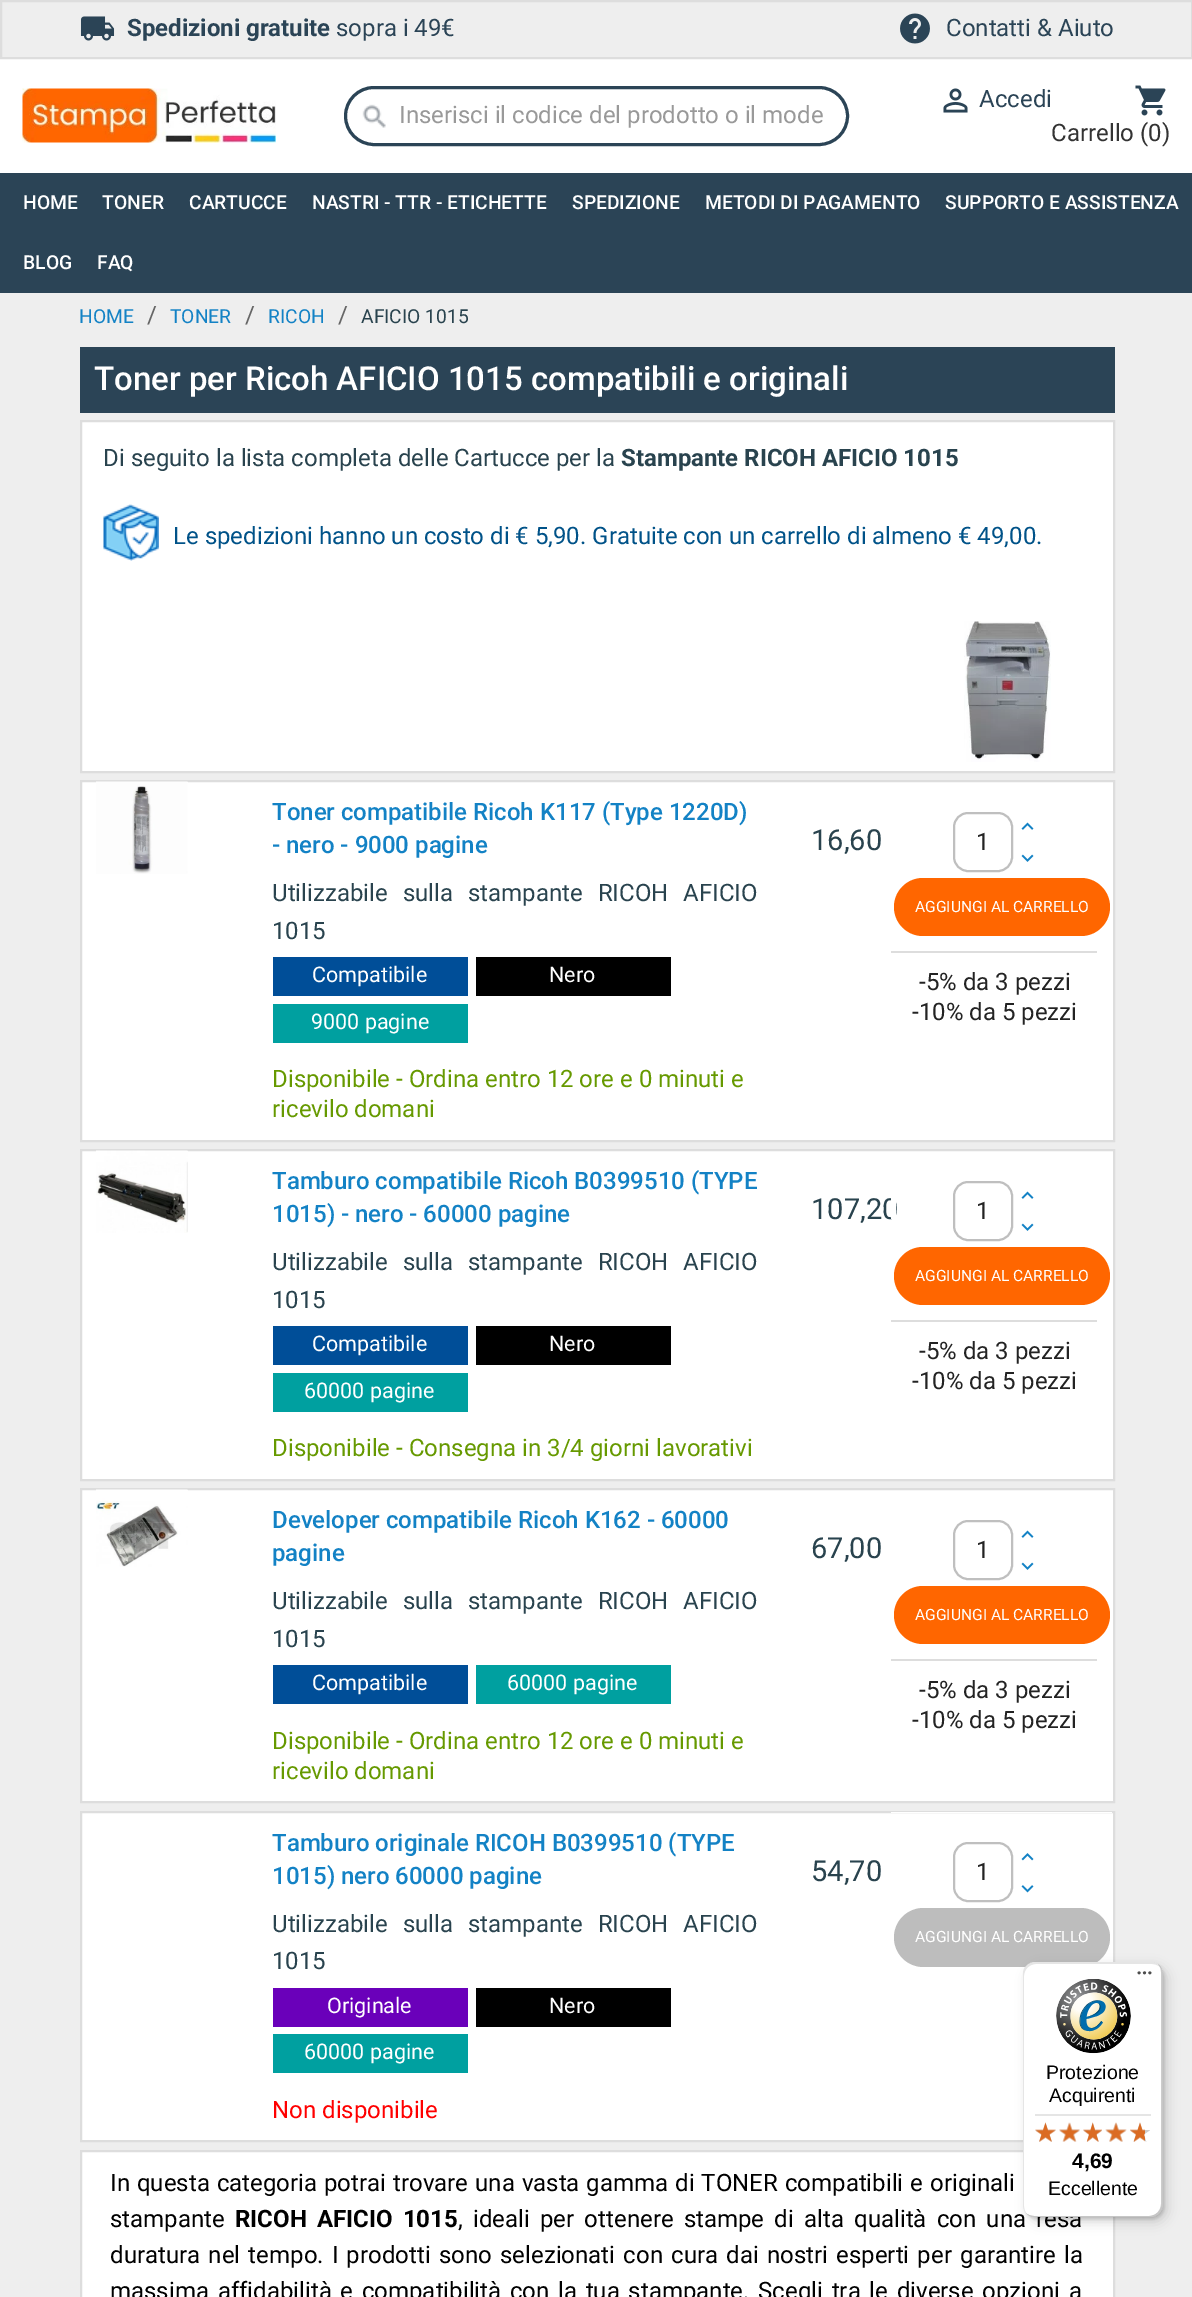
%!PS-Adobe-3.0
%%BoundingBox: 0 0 1192 2297
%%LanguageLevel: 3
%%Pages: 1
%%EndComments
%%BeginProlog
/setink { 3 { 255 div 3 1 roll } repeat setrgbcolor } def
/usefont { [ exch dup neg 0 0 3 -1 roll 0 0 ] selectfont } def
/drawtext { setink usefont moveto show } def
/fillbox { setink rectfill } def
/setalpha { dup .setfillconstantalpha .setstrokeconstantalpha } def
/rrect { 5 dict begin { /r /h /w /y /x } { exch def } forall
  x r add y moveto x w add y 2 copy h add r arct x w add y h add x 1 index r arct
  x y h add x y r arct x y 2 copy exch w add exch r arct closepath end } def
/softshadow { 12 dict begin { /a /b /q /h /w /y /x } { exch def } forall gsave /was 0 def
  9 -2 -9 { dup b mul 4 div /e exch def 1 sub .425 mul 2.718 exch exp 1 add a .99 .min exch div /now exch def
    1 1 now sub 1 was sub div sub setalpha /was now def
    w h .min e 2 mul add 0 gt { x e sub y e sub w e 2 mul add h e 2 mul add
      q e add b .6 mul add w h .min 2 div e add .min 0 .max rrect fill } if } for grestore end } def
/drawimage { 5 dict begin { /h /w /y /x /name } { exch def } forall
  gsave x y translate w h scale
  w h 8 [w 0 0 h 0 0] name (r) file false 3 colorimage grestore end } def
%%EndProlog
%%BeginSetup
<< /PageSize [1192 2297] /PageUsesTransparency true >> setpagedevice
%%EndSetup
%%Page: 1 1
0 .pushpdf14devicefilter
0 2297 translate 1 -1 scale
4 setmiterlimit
0 0 1192 2297 255 255 255 fillbox
238 238 238 setink
1 1 moveto 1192 1 lineto 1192 58 lineto 1 58 lineto closepath gsave fill grestore
221 221 221 setink
2 setlinewidth
stroke
(assets/img1.rgb) 80 16 35 25 drawimage
(Spedizioni gratuite) 127 36 /Roboto-Bold 24 43 68 86 drawtext
(sopra i 49€) 336 36 /Roboto-Regular 24 43 68 86 drawtext
(assets/img2.rgb) 900 13 30 31 drawimage
(Contatti & Aiuto) 946 36 /Roboto-Regular 24 43 68 86 drawtext
(assets/img3.rgb) 22 88 254 55 drawimage
(assets/img4.rgb) 362 104 24 24 drawimage
3 setlinewidth
345.5 87.5 502 57 28.5 rrect stroke
(Inserisci il codice del prodotto o il mode) 399 123 /Roboto-Regular 24 153 153 153 drawtext
(assets/img5.rgb) 943 88 25 25 drawimage
(Accedi) 979 107 /Roboto-Regular 24 43 68 86 drawtext
(assets/img6.rgb) 1135 85 31 31 drawimage
(Carrello \(0\)) 1051 141 /Roboto-Regular 24 51 51 51 drawtext
0 173 1192 120 43 68 86 fillbox
(HOME) 23 209 /Roboto-Medium 19.25 255 255 255 drawtext
(TONER) 102 209 /Roboto-Medium 19.25 255 255 255 drawtext
(CARTUCCE) 189 209 /Roboto-Medium 19.25 255 255 255 drawtext
(NASTRI - TTR - ETICHETTE) 312 209 /Roboto-Medium 19.25 255 255 255 drawtext
(SPEDIZIONE) 572 209 /Roboto-Medium 19.25 255 255 255 drawtext
(METODI DI PAGAMENTO) 705 209 /Roboto-Medium 19.25 255 255 255 drawtext
(SUPPORTO E ASSISTENZA) 945 209 /Roboto-Medium 19.25 255 255 255 drawtext
(BLOG) 23 269 /Roboto-Medium 19.25 255 255 255 drawtext
(FAQ) 97 269 /Roboto-Medium 19.25 255 255 255 drawtext
0 293 1192 2004 238 238 238 fillbox
(HOME) 79 323 /Roboto-Regular 19.25 19 130 197 drawtext
(/) 147 323 /Roboto-Regular 24 102 102 102 drawtext
(TONER) 170 323 /Roboto-Regular 19.25 19 130 197 drawtext
(/) 245 323 /Roboto-Regular 24 102 102 102 drawtext
(RICOH) 268 323 /Roboto-Regular 19.25 19 130 197 drawtext
(/) 338 323 /Roboto-Regular 24 102 102 102 drawtext
(AFICIO 1015) 361 323 /Roboto-Regular 19.25 41 67 78 drawtext
80 347 1035 66 43 68 86 fillbox
(Toner per Ricoh AFICIO 1015 compatibili e originali) 94 390 /Roboto-Medium 33 255 255 255 drawtext
81 421 moveto 1114 421 lineto 1114 772 lineto 81 772 lineto closepath gsave fill grestore
221 221 221 setink
2 setlinewidth
stroke
(Di seguito la lista completa delle Cartucce per la) 103 466 /Roboto-Regular 24 41 67 78 drawtext
(Stampante RICOH AFICIO 1015) 621 466 /Roboto-Bold 24 41 67 78 drawtext
(assets/img7.rgb) 103 504 56 57 drawimage
(Le spedizioni hanno un costo di € 5,90. Gratuite con un carrello di almeno € 49,00.) 173 544 /Roboto-Regular 24 0 82 136 drawtext
(assets/img8.rgb) 964 621 87 141 drawimage
255 255 255 setink
81 781 moveto 1114 781 lineto 1114 1141 lineto 81 1141 lineto closepath gsave fill grestore
221 221 221 setink
stroke
(assets/img9.rgb) 96 781 92 93 drawimage
(Toner compatibile Ricoh K117 \(Type 1220D\)) 272 820 /Roboto-Medium 24 19 130 197 drawtext
(- nero - 9000 pagine) 272 853 /Roboto-Medium 24 19 130 197 drawtext
/Roboto-Regular 24 usefont
41 67 78 setink
272 901 moveto 9 0 32 (Utilizzabile sulla stampante RICOH AFICIO) widthshow
(1015) 272 939 /Roboto-Regular 24 41 67 78 drawtext
273 957 195 39 0 78 152 fillbox
(Compatibile) 312 982 /Roboto-Regular 21.5 255 255 255 drawtext
476 957 195 39 0 0 0 fillbox
(Nero) 549 982 /Roboto-Regular 21.5 255 255 255 drawtext
273 1004 195 39 0 160 160 fillbox
(9000 pagine) 311 1029 /Roboto-Regular 21.5 255 255 255 drawtext
(Disponibile - Ordina entro 12 ore e 0 minuti e) 272 1087 /Roboto-Regular 24 102 153 0 drawtext
(ricevilo domani) 272 1117 /Roboto-Regular 24 102 153 0 drawtext
(16,60) 811 850 /Roboto-Regular 29 41 67 78 drawtext
191 191 191 setink
954 813 58 58 14 rrect stroke
(1) 976 850 /Roboto-Regular 24 35 35 35 drawtext
(assets/img10.rgb) 1021 822 13 8 drawimage
(assets/img11.rgb) 1021 854 13 8 drawimage
255 102 0 setink
894 878 216 58 29 rrect fill
(AGGIUNGI AL CARRELLO) 915 912 /Roboto-Regular 15.6 255 255 255 drawtext
891 951 206 2 221 221 221 fillbox
(-5% da 3 pezzi) 919 990 /Roboto-Regular 24 35 35 35 drawtext
(-10% da 5 pezzi) 912 1020 /Roboto-Regular 24 35 35 35 drawtext
255 255 255 setink
81 1150 moveto 1114 1150 lineto 1114 1480 lineto 81 1480 lineto closepath gsave fill grestore
221 221 221 setink
stroke
(assets/img12.rgb) 96 1150 92 83 drawimage
(Tamburo compatibile Ricoh B0399510 \(TYPE) 272 1189 /Roboto-Medium 24 19 130 197 drawtext
(1015\) - nero - 60000 pagine) 272 1222 /Roboto-Medium 24 19 130 197 drawtext
/Roboto-Regular 24 usefont
41 67 78 setink
272 1270 moveto 9 0 32 (Utilizzabile sulla stampante RICOH AFICIO) widthshow
(1015) 272 1308 /Roboto-Regular 24 41 67 78 drawtext
273 1326 195 39 0 78 152 fillbox
(Compatibile) 312 1351 /Roboto-Regular 21.5 255 255 255 drawtext
476 1326 195 39 0 0 0 fillbox
(Nero) 549 1351 /Roboto-Regular 21.5 255 255 255 drawtext
273 1373 195 39 0 160 160 fillbox
(60000 pagine) 304 1398 /Roboto-Regular 21.5 255 255 255 drawtext
(Disponibile - Consegna in 3/4 giorni lavorativi) 272 1456 /Roboto-Regular 24 102 153 0 drawtext
(107,20) 811 1219 /Roboto-Regular 29 41 67 78 drawtext
891 1198 5 21 255 255 255 fillbox
191 191 191 setink
954 1182 58 58 14 rrect stroke
(1) 976 1219 /Roboto-Regular 24 35 35 35 drawtext
(assets/img10.rgb) 1021 1191 13 8 drawimage
(assets/img11.rgb) 1021 1223 13 8 drawimage
255 102 0 setink
894 1247 216 58 29 rrect fill
(AGGIUNGI AL CARRELLO) 915 1281 /Roboto-Regular 15.6 255 255 255 drawtext
891 1320 206 2 221 221 221 fillbox
(-5% da 3 pezzi) 919 1359 /Roboto-Regular 24 35 35 35 drawtext
(-10% da 5 pezzi) 912 1389 /Roboto-Regular 24 35 35 35 drawtext
255 255 255 setink
81 1489 moveto 1114 1489 lineto 1114 1802 lineto 81 1802 lineto closepath gsave fill grestore
221 221 221 setink
stroke
(assets/img13.rgb) 96 1489 92 78 drawimage
(Developer compatibile Ricoh K162 - 60000) 272 1528 /Roboto-Medium 24 19 130 197 drawtext
(pagine) 272 1561 /Roboto-Medium 24 19 130 197 drawtext
/Roboto-Regular 24 usefont
41 67 78 setink
272 1609 moveto 9 0 32 (Utilizzabile sulla stampante RICOH AFICIO) widthshow
(1015) 272 1647 /Roboto-Regular 24 41 67 78 drawtext
273 1665 195 39 0 78 152 fillbox
(Compatibile) 312 1690 /Roboto-Regular 21.5 255 255 255 drawtext
476 1665 195 39 0 160 160 fillbox
(60000 pagine) 507 1690 /Roboto-Regular 21.5 255 255 255 drawtext
(Disponibile - Ordina entro 12 ore e 0 minuti e) 272 1749 /Roboto-Regular 24 102 153 0 drawtext
(ricevilo domani) 272 1779 /Roboto-Regular 24 102 153 0 drawtext
(67,00) 811 1558 /Roboto-Regular 29 41 67 78 drawtext
191 191 191 setink
954 1521 58 58 14 rrect stroke
(1) 976 1558 /Roboto-Regular 24 35 35 35 drawtext
(assets/img10.rgb) 1021 1530 13 8 drawimage
(assets/img11.rgb) 1021 1562 13 8 drawimage
255 102 0 setink
894 1586 216 58 29 rrect fill
(AGGIUNGI AL CARRELLO) 915 1620 /Roboto-Regular 15.6 255 255 255 drawtext
891 1659 206 2 221 221 221 fillbox
(-5% da 3 pezzi) 919 1698 /Roboto-Regular 24 35 35 35 drawtext
(-10% da 5 pezzi) 912 1728 /Roboto-Regular 24 35 35 35 drawtext
255 255 255 setink
81 1812 moveto 1114 1812 lineto 1114 2141 lineto 81 2141 lineto closepath gsave fill grestore
221 221 221 setink
stroke
(Tamburo originale RICOH B0399510 \(TYPE) 272 1851 /Roboto-Medium 24 19 130 197 drawtext
(1015\) nero 60000 pagine) 272 1884 /Roboto-Medium 24 19 130 197 drawtext
/Roboto-Regular 24 usefont
41 67 78 setink
272 1932 moveto 9 0 32 (Utilizzabile sulla stampante RICOH AFICIO) widthshow
(1015) 272 1969 /Roboto-Regular 24 41 67 78 drawtext
273 1988 195 39 106 0 186 fillbox
(Originale) 327 2013 /Roboto-Regular 21.5 255 255 255 drawtext
476 1988 195 39 0 0 0 fillbox
(Nero) 549 2013 /Roboto-Regular 21.5 255 255 255 drawtext
273 2034 195 39 0 160 160 fillbox
(60000 pagine) 304 2059 /Roboto-Regular 21.5 255 255 255 drawtext
(Non disponibile) 272 2118 /Roboto-Regular 24 255 0 0 drawtext
(54,70) 811 1881 /Roboto-Regular 29 41 67 78 drawtext
891 1812 221 1 255 255 255 fillbox
191 191 191 setink
954 1843 58 58 14 rrect stroke
(1) 976 1880 /Roboto-Regular 24 35 35 35 drawtext
(assets/img14.rgb) 1021 1853 13 8 drawimage
(assets/img15.rgb) 1021 1885 13 8 drawimage
189 189 189 setink
894 1908 216 59 29.5 rrect fill
(AGGIUNGI AL CARRELLO) 915 1942 /Roboto-Regular 15.6 255 255 255 drawtext
81 2151 moveto 1114 2151 lineto 1114 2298 lineto 81 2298 lineto closepath gsave fill grestore
221 221 221 setink
stroke
/Roboto-Regular 24 usefont
0 0 0 setink
110 2191 moveto 1 0 32 (In questa categoria potrai trovare una vasta gamma di TONER compatibili e originali) widthshow
(stampante) 110 2227 /Roboto-Regular 24 0 0 0 drawtext
/Roboto-Bold 24 usefont
235 2227 moveto 4.25 0 32 (RICOH AFICIO 1015) widthshow
/Roboto-Regular 24 usefont
458 2227 moveto 4.25 0 32 (, ideali per ottenere stampe di alta qualità con una resa) widthshow
110 2263 moveto 2.25 0 32 (duratura nel tempo. I prodotti sono selezionati con cura dai nostri esperti per garantire la) widthshow
110 2299 moveto 2.75 0 32 (massima affidabilità e compatibilità con la tua stampante. Scegli tra le diverse opzioni a) widthshow
1028 1967 139 255 12 6 0.15 softshadow
1025 1964 139 255 12 1.5 0.15 softshadow
255 255 255 setink
1023 1962 140 255 12 rrect fill
0.1 setalpha
0 0 0 setink
1036 1964 moveto 1152 1964 lineto 1156 1964 1160 1966 1162 1969 curveto 1160 1965 1156 1962 1151 1962 curveto 1035 1962 lineto 1028 1962 1023 1967 1023 1974 curveto 1023 2205 lineto 1023 2209 1025 2212 1027 2214 curveto 1025 2212 1024 2209 1024 2206 curveto 1024 1976 lineto 1024 1969 1030 1964 1036 1964 curveto closepath fill
0.2 setalpha
1026 2213 moveto 1028 2215 1031 2217 1035 2217 curveto 1151 2217 lineto 1158 2217 1163 2212 1163 2205 curveto 1163 1974 lineto 1163 1970 1161 1967 1158 1964 curveto 1160 1967 1161 1969 1161 1972 curveto 1161 2204 lineto 1161 2210 1156 2216 1149 2216 curveto 1034 2216 lineto 1031 2216 1028 2215 1026 2213 curveto closepath fill
50 50 50 setink
1027 2214 moveto 1029 2216 1032 2217 1035 2217 curveto 1151 2217 lineto 1158 2217 1163 2212 1163 2205 curveto 1163 1974 lineto 1163 1970 1161 1967 1159 1965 curveto 1161 1967 1162 1970 1162 1973 curveto 1162 2204 lineto 1162 2211 1156 2216 1150 2216 curveto 1034 2216 lineto 1031 2216 1029 2215 1027 2214 curveto closepath fill
0.3 setalpha
255 255 255 setink
1026 2213 moveto 1028 2215 1031 2217 1035 2217 curveto 1151 2217 lineto 1158 2217 1163 2212 1163 2205 curveto 1163 1974 lineto 1163 1969 1161 1966 1157 1964 curveto 1160 1966 1162 1969 1162 1973 curveto 1162 2204 lineto 1162 2211 1156 2216 1150 2216 curveto 1034 2216 lineto 1031 2216 1028 2215 1026 2213 curveto closepath fill
1 setalpha
(assets/img16.rgb) 1137 1971 15 4 drawimage
(assets/img17.rgb) 1056 1979 75 75 drawimage
(Protezione) 1046 2079 /LiberationSans-Regular 19.5 0 0 0 drawtext
(Acquirenti) 1049 2102 /LiberationSans-Regular 19.5 0 0 0 drawtext
1035 2114 116 2 229 229 229 fillbox
(assets/img23.rgb) 1035 2123 21 19 drawimage
(assets/img18.rgb) 1035 2122 21 20 drawimage
(assets/img24.rgb) 1059 2123 21 19 drawimage
(assets/img19.rgb) 1059 2122 21 20 drawimage
(assets/img25.rgb) 1083 2123 19 19 drawimage
(assets/img20.rgb) 1083 2122 19 20 drawimage
(assets/img26.rgb) 1106 2123 20 19 drawimage
(assets/img21.rgb) 1105 2122 22 20 drawimage
(assets/img27.rgb) 1130 2123 20 19 drawimage
(assets/img22.rgb) 1130 2122 15 20 drawimage
(4,69) 1072 2168 /LiberationSans-Bold 21 0 0 0 drawtext
(Eccellente) 1048 2195 /LiberationSans-Regular 19.5 0 0 0 drawtext
.poppdf14devicefilter showpage
%%EOF
